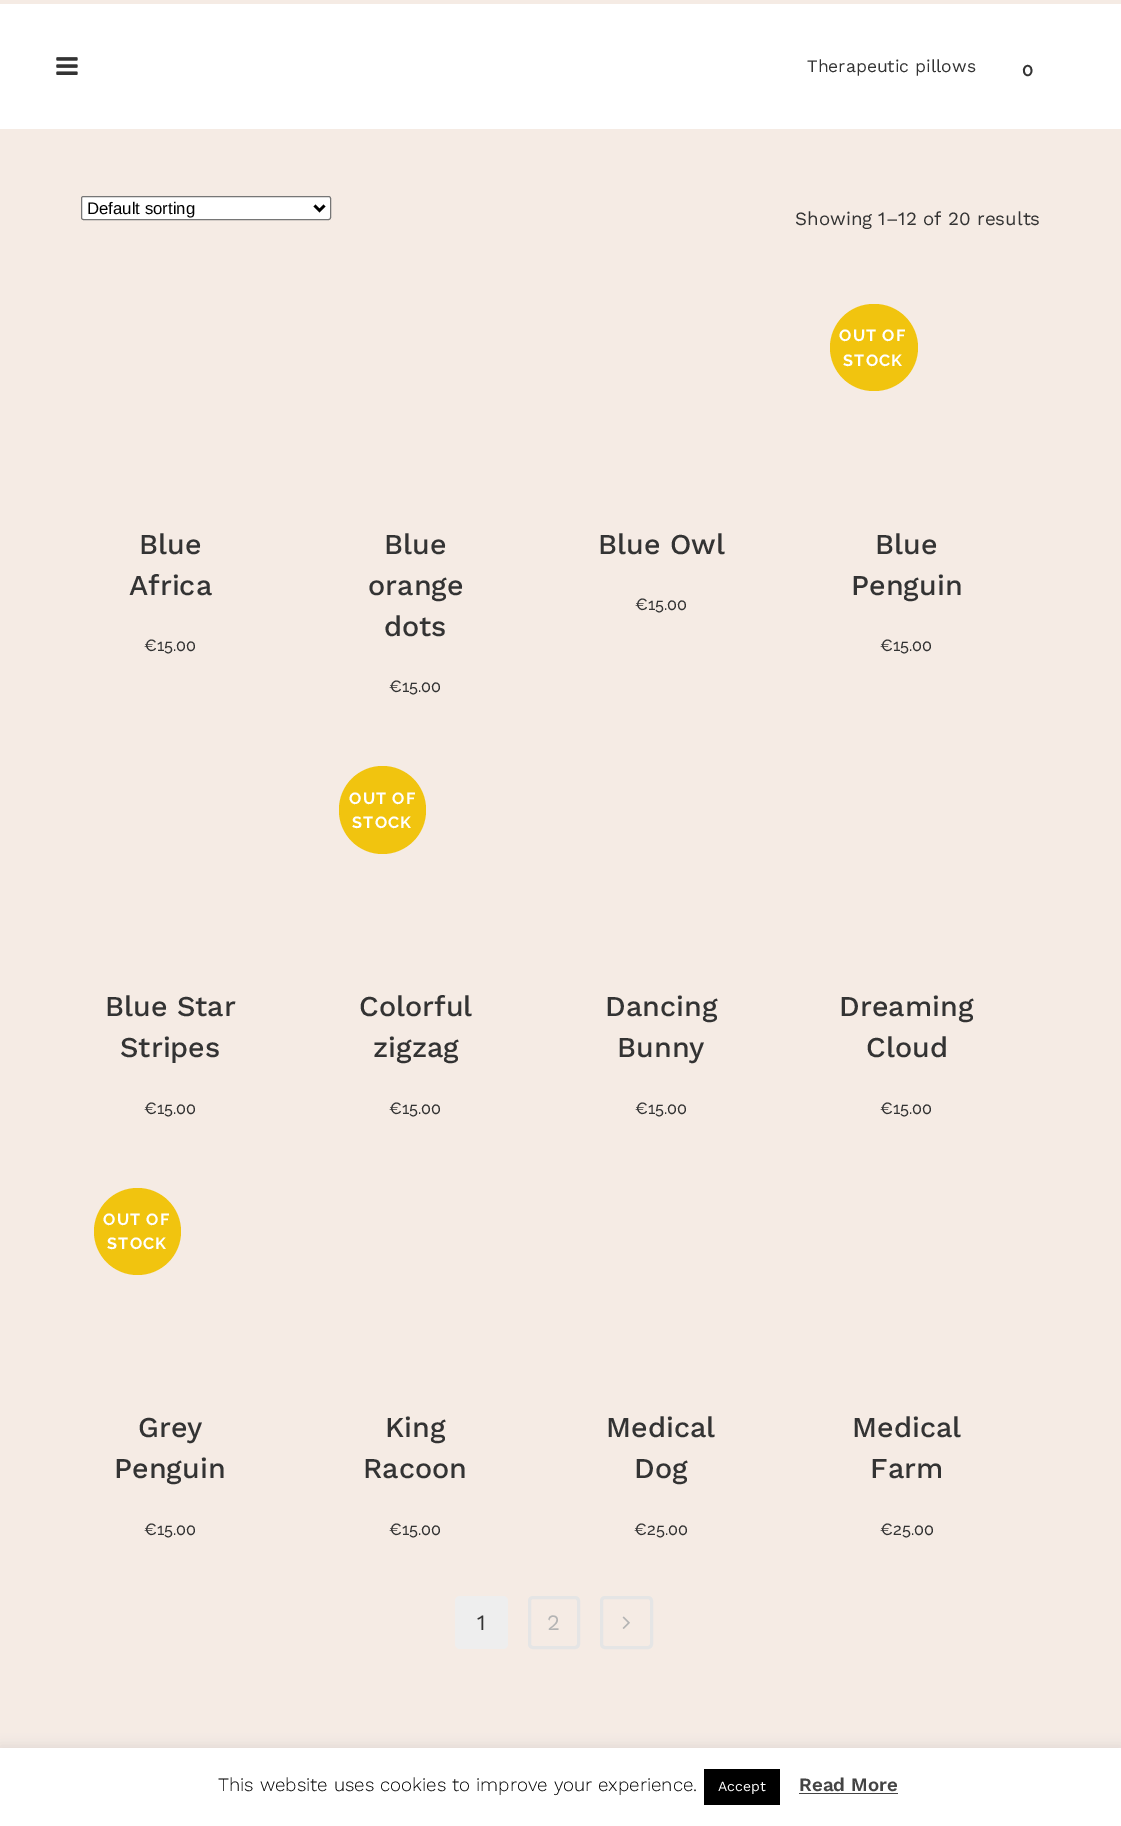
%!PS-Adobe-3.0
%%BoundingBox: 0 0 1121 1826
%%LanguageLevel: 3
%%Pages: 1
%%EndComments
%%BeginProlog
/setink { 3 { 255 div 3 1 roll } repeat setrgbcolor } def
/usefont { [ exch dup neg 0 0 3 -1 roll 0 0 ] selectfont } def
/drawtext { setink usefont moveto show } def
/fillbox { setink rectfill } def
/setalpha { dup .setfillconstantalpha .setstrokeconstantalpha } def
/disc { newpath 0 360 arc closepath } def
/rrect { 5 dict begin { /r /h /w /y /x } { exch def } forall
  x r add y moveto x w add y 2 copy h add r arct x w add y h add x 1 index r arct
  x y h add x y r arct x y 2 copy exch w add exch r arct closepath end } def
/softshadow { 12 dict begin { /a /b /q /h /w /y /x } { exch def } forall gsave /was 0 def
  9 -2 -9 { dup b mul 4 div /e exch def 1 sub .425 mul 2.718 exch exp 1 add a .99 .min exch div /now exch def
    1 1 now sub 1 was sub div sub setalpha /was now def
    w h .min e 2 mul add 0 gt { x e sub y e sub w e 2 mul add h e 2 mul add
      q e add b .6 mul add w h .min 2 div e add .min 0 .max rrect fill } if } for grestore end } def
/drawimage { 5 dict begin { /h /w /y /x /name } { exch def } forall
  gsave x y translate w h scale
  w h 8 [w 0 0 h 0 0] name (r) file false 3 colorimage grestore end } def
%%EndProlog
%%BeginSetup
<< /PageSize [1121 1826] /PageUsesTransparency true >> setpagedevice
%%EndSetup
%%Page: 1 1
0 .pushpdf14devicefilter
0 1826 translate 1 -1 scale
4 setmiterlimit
0 0 1121 1826 245 235 228 fillbox
0 4 1121 125 255 255 255 fillbox
(assets/img1.rgb) 56 57 22 18 drawimage
(Therapeutic pillows) 807 72 /WorkSans-Regular 17.5 51 51 51 drawtext
(0) 1022 76 /Raleway-SemiBold 18.75 51 51 51 drawtext
255 255 255 setink
81.5 196.5 249 23 2 rrect gsave fill grestore
118 118 118 setink
stroke
0 0 0 setink
2.5 setlinewidth
314.5 205.5 moveto 319.5 210.5 lineto 324.5 205.5 lineto stroke
(Default sorting) 87 214 /LiberationSans-Regular 16.75 0 0 0 drawtext
(Showing 1–12 of 20 results) 795 225 /WorkSans-Regular 18.75 51 51 51 drawtext
(Blue) 139 554 /WorkSans-Medium 28.75 51 51 51 drawtext
(Africa) 129 595 /WorkSans-Medium 28.75 51 51 51 drawtext
(€15.00) 144 651 /Raleway-Medium 16.25 51 51 51 drawtext
(Blue) 384 554 /WorkSans-Medium 28.75 51 51 51 drawtext
(orange) 368 595 /WorkSans-Medium 28.75 51 51 51 drawtext
(dots) 384 636 /WorkSans-Medium 28.75 51 51 51 drawtext
(€15.00) 389 692 /Raleway-Medium 16.25 51 51 51 drawtext
(Blue Owl) 598 554 /WorkSans-Medium 28.75 51 51 51 drawtext
(€15.00) 635 610 /Raleway-Medium 16.25 51 51 51 drawtext
241 196 15 setink
830 304 88 87 43.5 rrect fill
/Raleway-Bold 16.25 usefont
255 255 255 setink
839 341 moveto 1.25 0 (OUT OF) ashow
843 366 moveto 1.25 0 (STOCK) ashow
(Blue) 875 554 /WorkSans-Medium 28.75 51 51 51 drawtext
(Penguin) 851 595 /WorkSans-Medium 28.75 51 51 51 drawtext
(€15.00) 880 651 /Raleway-Medium 16.25 51 51 51 drawtext
(Blue Star) 105 1016 /WorkSans-Medium 28.75 51 51 51 drawtext
(Stripes) 120 1057 /WorkSans-Medium 28.75 51 51 51 drawtext
(€15.00) 144 1114 /Raleway-Medium 16.25 51 51 51 drawtext
241 196 15 setink
339 766 87 88 43.5 rrect fill
/Raleway-Bold 16.25 usefont
255 255 255 setink
349 804 moveto 1.25 0 (OUT OF) ashow
352 828 moveto 1.25 0 (STOCK) ashow
(Colorful) 359 1016 /WorkSans-Medium 28.75 51 51 51 drawtext
(zigzag) 373 1057 /WorkSans-Medium 28.75 51 51 51 drawtext
(€15.00) 389 1114 /Raleway-Medium 16.25 51 51 51 drawtext
(Dancing) 605 1016 /WorkSans-Medium 28.75 51 51 51 drawtext
(Bunny) 617 1057 /WorkSans-Medium 28.75 51 51 51 drawtext
(€15.00) 635 1114 /Raleway-Medium 16.25 51 51 51 drawtext
(Dreaming) 839 1016 /WorkSans-Medium 28.75 51 51 51 drawtext
(Cloud) 866 1057 /WorkSans-Medium 28.75 51 51 51 drawtext
(€15.00) 880 1114 /Raleway-Medium 16.25 51 51 51 drawtext
241 196 15 setink
137.5 1231.5 43.5 disc fill
/Raleway-Bold 16.25 usefont
255 255 255 setink
103 1225 moveto 1.25 0 (OUT OF) ashow
107 1249 moveto 1.25 0 (STOCK) ashow
(Grey) 138 1437 /WorkSans-Medium 28.75 51 51 51 drawtext
(Penguin) 114 1478 /WorkSans-Medium 28.75 51 51 51 drawtext
(€15.00) 144 1535 /Raleway-Medium 16.25 51 51 51 drawtext
(King) 385 1437 /WorkSans-Medium 28.75 51 51 51 drawtext
(Racoon) 363 1478 /WorkSans-Medium 28.75 51 51 51 drawtext
(€15.00) 389 1535 /Raleway-Medium 16.25 51 51 51 drawtext
(Medical) 606 1437 /WorkSans-Medium 28.75 51 51 51 drawtext
(Dog) 634 1478 /WorkSans-Medium 28.75 51 51 51 drawtext
(€25.00) 634 1535 /Raleway-Medium 16.25 51 51 51 drawtext
(Medical) 852 1437 /WorkSans-Medium 28.75 51 51 51 drawtext
(Farm) 870 1478 /WorkSans-Medium 28.75 51 51 51 drawtext
(€25.00) 880 1535 /Raleway-Medium 16.25 51 51 51 drawtext
238 238 238 setink
455 1596 53 53 5 rrect fill
(1) 477 1630 /WorkSans-Regular 22 51 51 51 drawtext
229 229 229 setink
3 setlinewidth
529.5 1597.5 49 50 3.5 rrect stroke
(2) 547 1630 /WorkSans-Regular 22 180 180 180 drawtext
229 229 229 setink
601.5 1597.5 50 50 3.5 rrect stroke
(assets/img2.rgb) 622 1616 8 13 drawimage
172 171 171 setink
0 1746 1121 79 0 6 0.3 softshadow
0 1748 1121 78 255 255 255 fillbox
(This website uses cookies to improve your experience.) 218 1791 /WorkSans-Light 18.75 0 0 0 drawtext
704 1769 76 36 0 0 0 fillbox
(Accept) 718 1791 /WorkSans-Regular 14 255 255 255 drawtext
(Read More) 799 1791 /WorkSans-SemiBold 18.75 68 68 68 drawtext
799 1793 99 1 68 68 68 fillbox
.poppdf14devicefilter showpage
%%EOF
